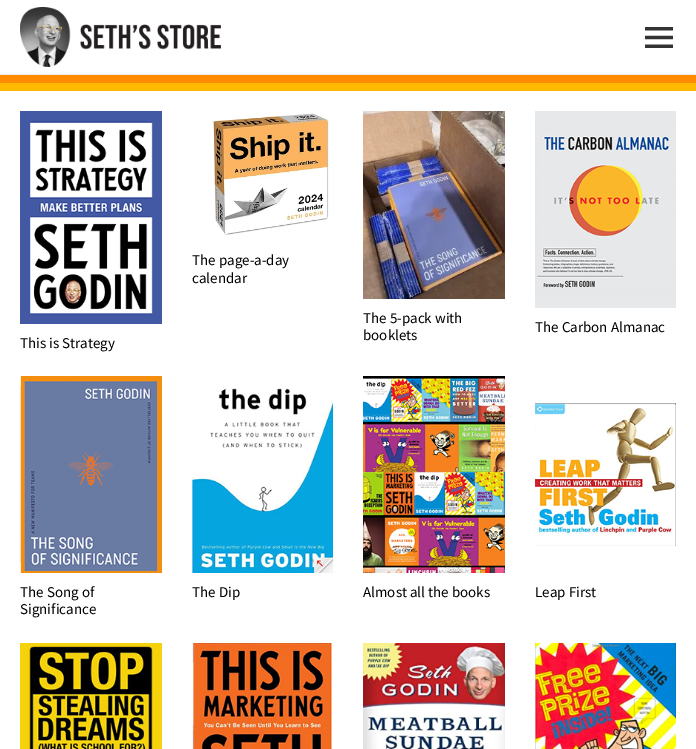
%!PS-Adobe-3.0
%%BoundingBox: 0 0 696 749
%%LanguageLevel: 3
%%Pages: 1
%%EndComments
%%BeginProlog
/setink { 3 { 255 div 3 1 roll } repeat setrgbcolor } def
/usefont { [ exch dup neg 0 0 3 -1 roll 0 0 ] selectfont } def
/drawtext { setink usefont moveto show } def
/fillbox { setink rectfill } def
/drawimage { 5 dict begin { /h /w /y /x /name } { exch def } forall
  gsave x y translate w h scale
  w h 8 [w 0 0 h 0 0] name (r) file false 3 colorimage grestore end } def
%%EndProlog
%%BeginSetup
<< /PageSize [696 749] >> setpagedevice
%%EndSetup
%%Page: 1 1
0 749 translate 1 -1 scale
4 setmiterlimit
0 0 696 749 255 255 255 fillbox
0 74 696 1 235 235 235 fillbox
(assets/img1.rgb) 20 7 201 60 drawimage
(assets/img2.rgb) 645 27 28 21 drawimage
0 83 696 8 255 185 0 fillbox
0 75 696 8 255 140 0 fillbox
(assets/img3.rgb) 212 113 117 122 drawimage
(The page-a-day) 192 265 /SourceSansPro-Regular 15 0 0 0 drawtext
(calendar) 192 283 /SourceSansPro-Regular 15 0 0 0 drawtext
(assets/img4.rgb) 363 111 142 188 drawimage
(The 5-pack with) 363 323 /SourceSansPro-Regular 15 0 0 0 drawtext
(booklets) 363 340 /SourceSansPro-Regular 15 0 0 0 drawtext
(assets/img5.rgb) 535 111 141 197 drawimage
(The Carbon Almanac) 535 332 /SourceSansPro-Regular 15 0 0 0 drawtext
(assets/img6.rgb) 20 111 142 213 drawimage
(This is Strategy) 20 348 /SourceSansPro-Regular 15 0 0 0 drawtext
(assets/img7.rgb) 20 376 142 197 drawimage
(The Song of) 20 597 /SourceSansPro-Regular 15 0 0 0 drawtext
(Significance) 20 614 /SourceSansPro-Regular 15 0 0 0 drawtext
(assets/img8.rgb) 192 388 141 185 drawimage
(The Dip) 192 597 /SourceSansPro-Regular 15 0 0 0 drawtext
(assets/img9.rgb) 363 376 142 197 drawimage
(Almost all the books) 363 597 /SourceSansPro-Regular 15 0 0 0 drawtext
(assets/img10.rgb) 535 403 141 143 drawimage
(Leap First) 535 597 /SourceSansPro-Regular 15 0 0 0 drawtext
(assets/img11.rgb) 20 643 142 106 drawimage
(assets/img12.rgb) 192 643 140 106 drawimage
(assets/img13.rgb) 363 643 142 106 drawimage
(assets/img14.rgb) 535 643 141 106 drawimage
showpage
%%EOF
